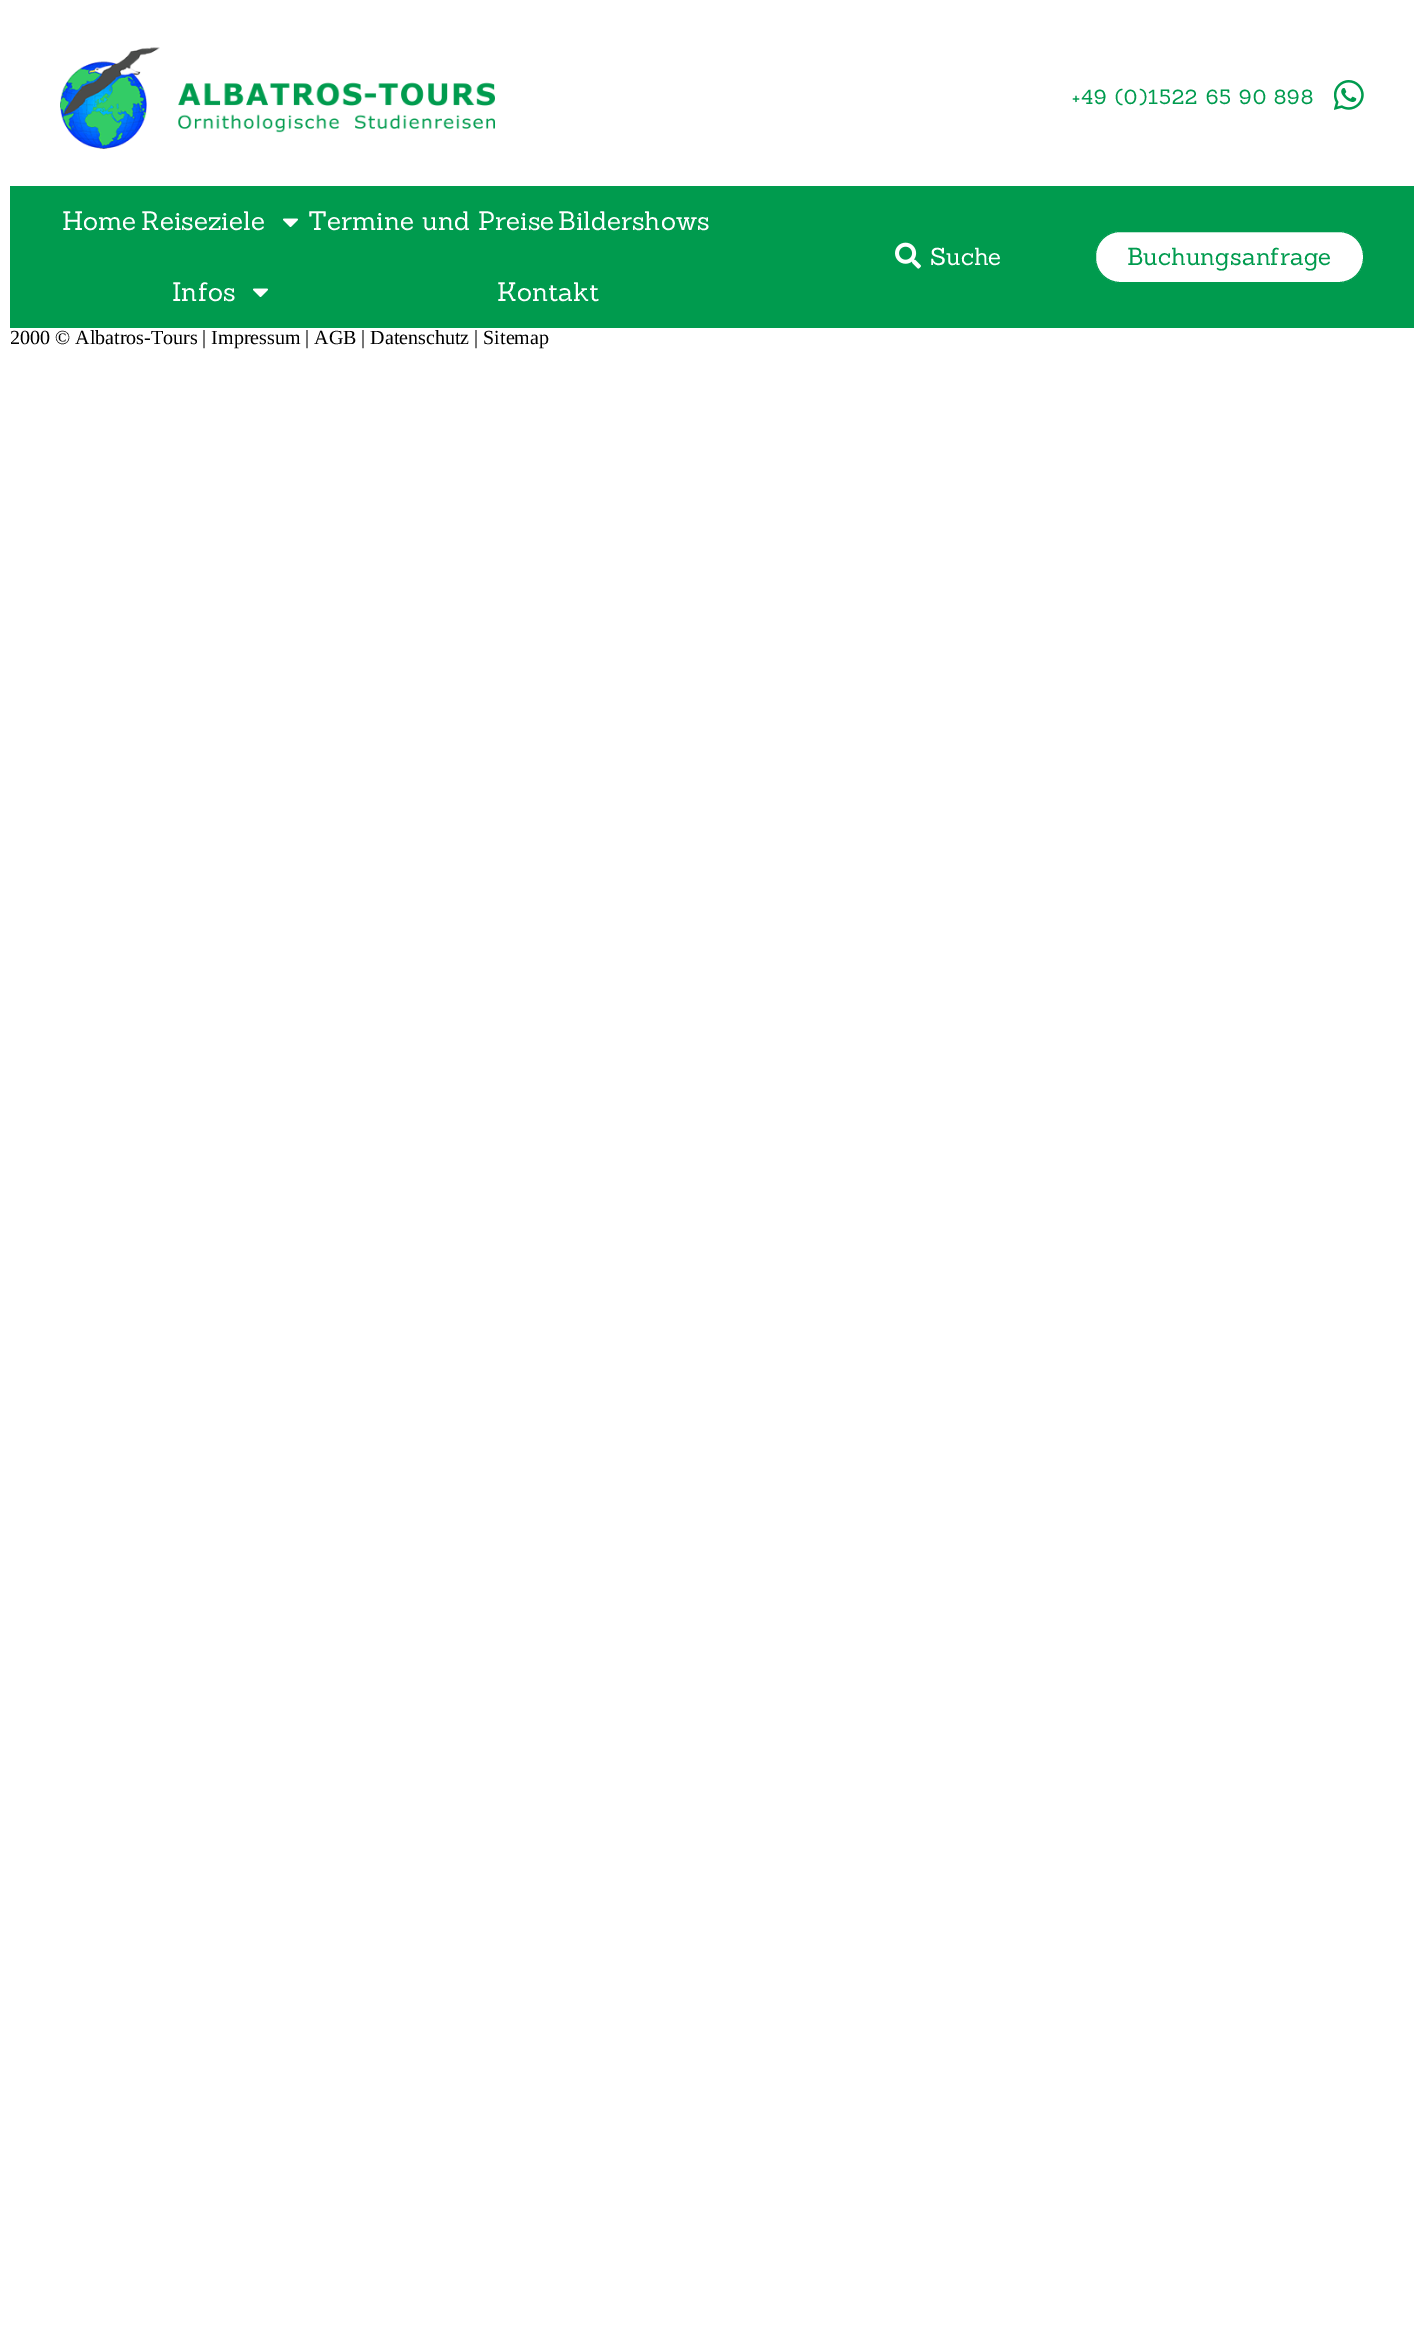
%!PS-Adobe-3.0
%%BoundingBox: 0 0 1423 2334
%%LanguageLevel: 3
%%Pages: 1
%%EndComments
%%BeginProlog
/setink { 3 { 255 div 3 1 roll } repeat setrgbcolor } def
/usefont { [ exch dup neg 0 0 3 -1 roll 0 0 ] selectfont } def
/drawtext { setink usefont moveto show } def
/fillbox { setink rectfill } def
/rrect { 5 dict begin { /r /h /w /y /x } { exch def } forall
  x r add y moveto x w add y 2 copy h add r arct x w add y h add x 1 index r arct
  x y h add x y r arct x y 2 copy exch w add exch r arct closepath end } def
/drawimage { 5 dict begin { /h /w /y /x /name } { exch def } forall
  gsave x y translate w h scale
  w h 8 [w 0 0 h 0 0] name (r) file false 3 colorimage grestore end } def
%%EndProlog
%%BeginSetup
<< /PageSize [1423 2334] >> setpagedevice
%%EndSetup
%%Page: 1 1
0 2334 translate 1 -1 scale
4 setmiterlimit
0 0 1423 2334 255 255 255 fillbox
(assets/img1.rgb) 60 47 435 102 drawimage
/Sanchez-Regular 20 usefont
0 155 78 setink
1072 104 moveto 1.1 0 (+49 \(0\)1522 65 90 898) ashow
(assets/img2.rgb) 1334 80 30 30 drawimage
10 186 1404 142 0 155 78 fillbox
(Home) 62 230 /Sanchez-Regular 26 255 255 255 drawtext
(Reiseziele) 141 230 /Sanchez-Regular 26 255 255 255 drawtext
(assets/img3.rgb) 283 218 15 9 drawimage
(Termine und Preise) 308 230 /Sanchez-Regular 26 255 255 255 drawtext
(Bildershows) 558 230 /Sanchez-Regular 26 255 255 255 drawtext
(Infos) 172 301 /Sanchez-Regular 26 255 255 255 drawtext
(assets/img3.rgb) 253 288 15 9 drawimage
(Kontakt) 497 301 /Sanchez-Regular 26 255 255 255 drawtext
(assets/img4.rgb) 895 242 26 27 drawimage
(Suche) 930 265 /Sanchez-Regular 24 255 255 255 drawtext
1095.5 231.5 268 51 24.5 rrect gsave fill grestore
0 155 78 setink
stroke
(Buchungsanfrage) 1127 265 /Sanchez-Regular 24 0 155 78 drawtext
(2000 © Albatros-Tours | Impressum | AGB | Datenschutz | Sitemap) 10 344 /LiberationSerif-Regular 20 0 0 0 drawtext
showpage
%%EOF
